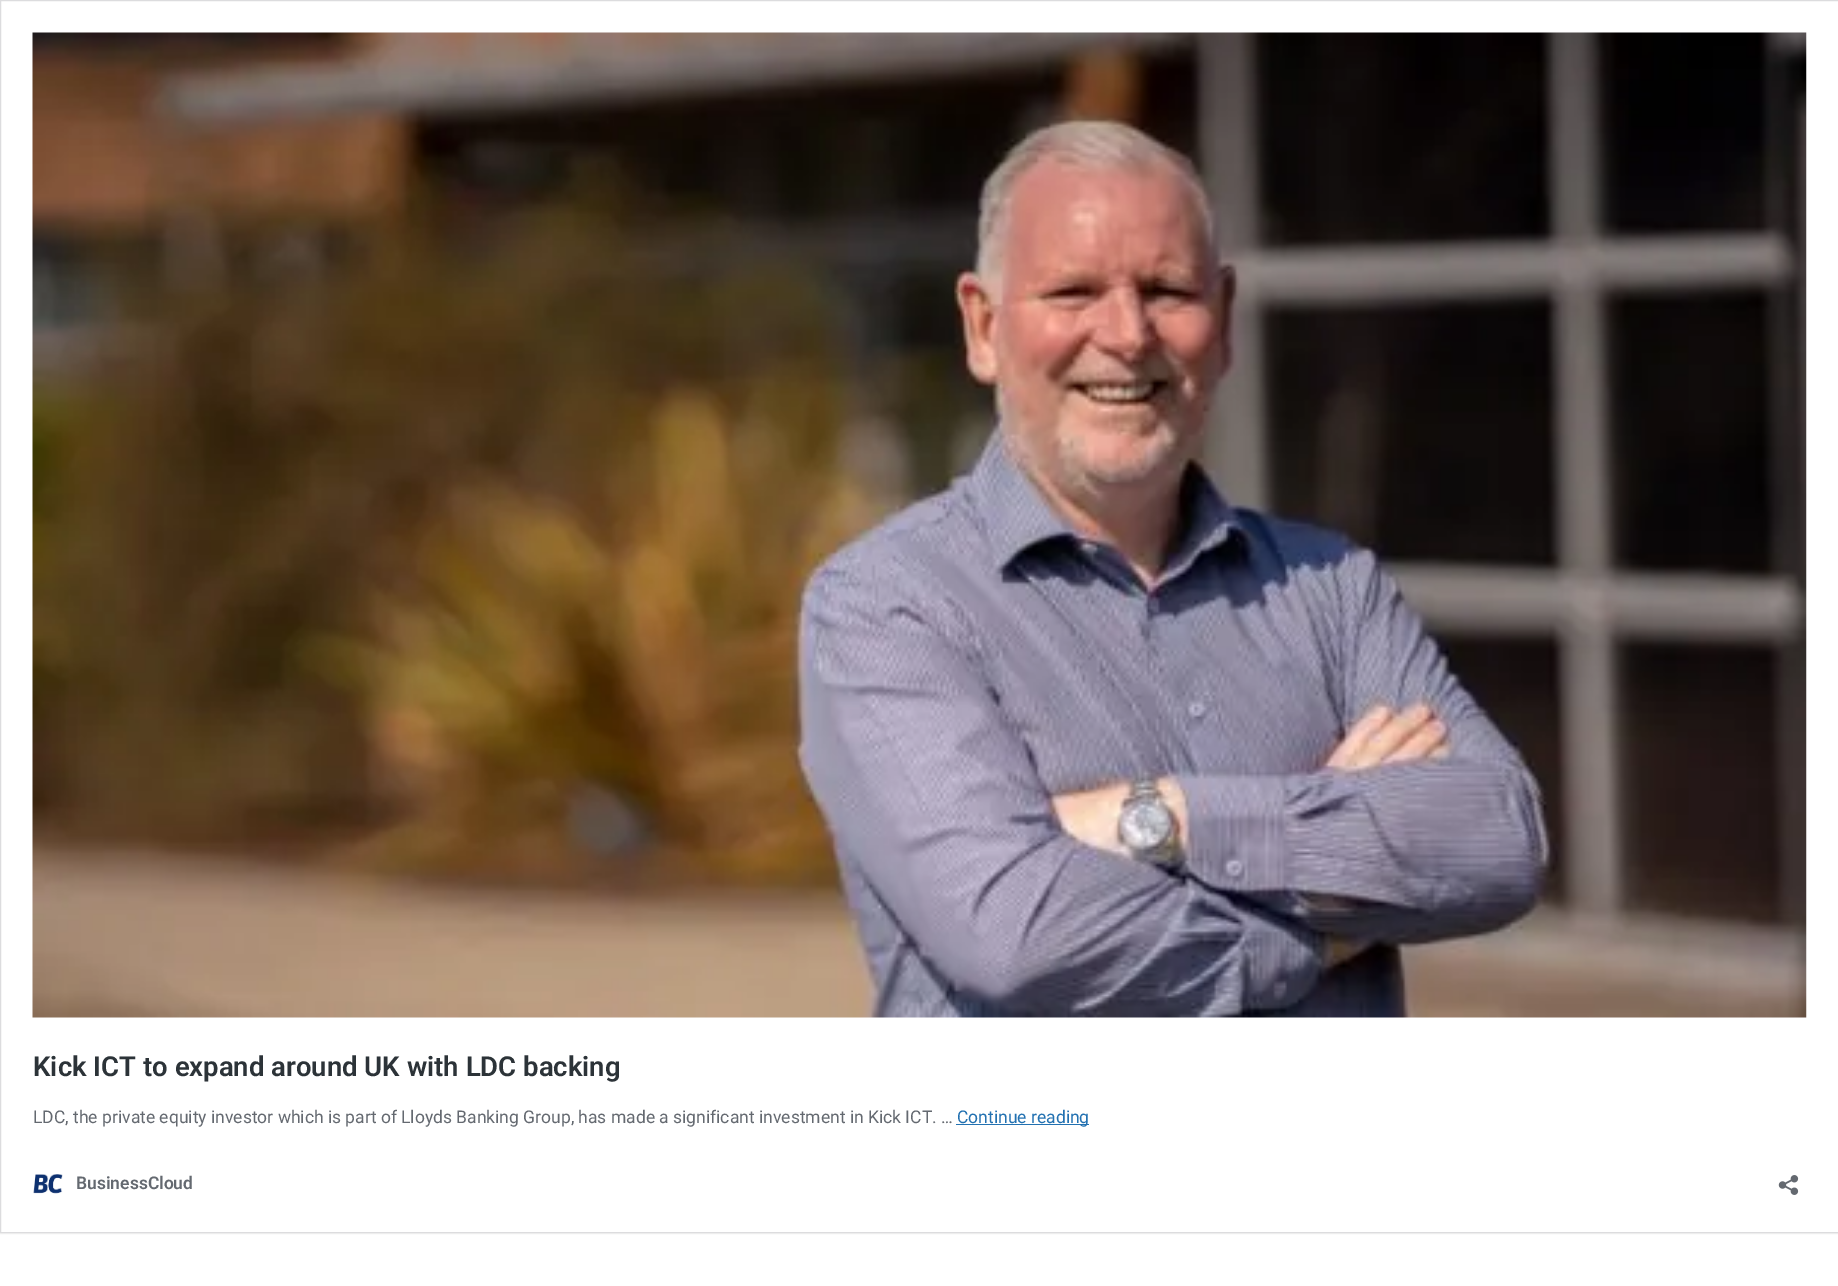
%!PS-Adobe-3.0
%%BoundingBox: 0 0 1838 1286
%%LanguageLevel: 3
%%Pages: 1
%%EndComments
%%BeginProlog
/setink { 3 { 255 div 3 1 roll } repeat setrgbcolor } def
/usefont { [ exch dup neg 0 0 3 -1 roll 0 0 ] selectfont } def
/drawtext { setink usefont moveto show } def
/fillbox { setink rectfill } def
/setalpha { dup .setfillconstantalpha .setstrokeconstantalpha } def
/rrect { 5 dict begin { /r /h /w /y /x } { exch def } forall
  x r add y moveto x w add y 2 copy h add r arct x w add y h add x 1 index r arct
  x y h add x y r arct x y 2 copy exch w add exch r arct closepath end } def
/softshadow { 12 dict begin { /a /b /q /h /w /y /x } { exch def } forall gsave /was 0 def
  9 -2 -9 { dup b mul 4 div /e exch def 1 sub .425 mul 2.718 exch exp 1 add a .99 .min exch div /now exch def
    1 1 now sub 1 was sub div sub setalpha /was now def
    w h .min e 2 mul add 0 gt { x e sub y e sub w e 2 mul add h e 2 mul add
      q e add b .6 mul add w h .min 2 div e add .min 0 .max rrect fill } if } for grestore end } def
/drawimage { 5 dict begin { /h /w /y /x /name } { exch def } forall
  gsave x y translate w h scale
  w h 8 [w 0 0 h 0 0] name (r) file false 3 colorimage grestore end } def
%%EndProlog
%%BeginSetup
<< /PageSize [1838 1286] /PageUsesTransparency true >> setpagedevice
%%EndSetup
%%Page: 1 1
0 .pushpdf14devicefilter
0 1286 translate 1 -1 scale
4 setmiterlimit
0 0 1838 1286 255 255 255 fillbox
0 0 0 setink
0 1 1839 1233 0 0.5 0.05 softshadow
255 255 255 setink
0.5 0.5 moveto 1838.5 0.5 lineto 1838.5 1232.5 lineto 0.5 1232.5 lineto closepath gsave fill grestore
220 220 222 setink
stroke
(assets/img1.rgb) 32 32 1775 986 drawimage
(Kick ICT to expand around UK with LDC backing) 33 1076 /Roboto-SemiBold 27.5 44 51 56 drawtext
(LDC, the private equity investor which is part of Lloyds Banking Group, has made a significant investment in Kick ICT. …) 33 1123 /Roboto-Regular 17.5 100 105 112 drawtext
956 1124 133 1 34 113 177 fillbox
(Continue reading) 957 1123 /Roboto-Regular 17.5 34 113 177 drawtext
(assets/img2.rgb) 33 1174 30 20 drawimage
(BusinessCloud) 76 1189 /Roboto-SemiBold 17.5 100 105 112 drawtext
(assets/img3.rgb) 1778 1175 21 20 drawimage
.poppdf14devicefilter showpage
%%EOF
